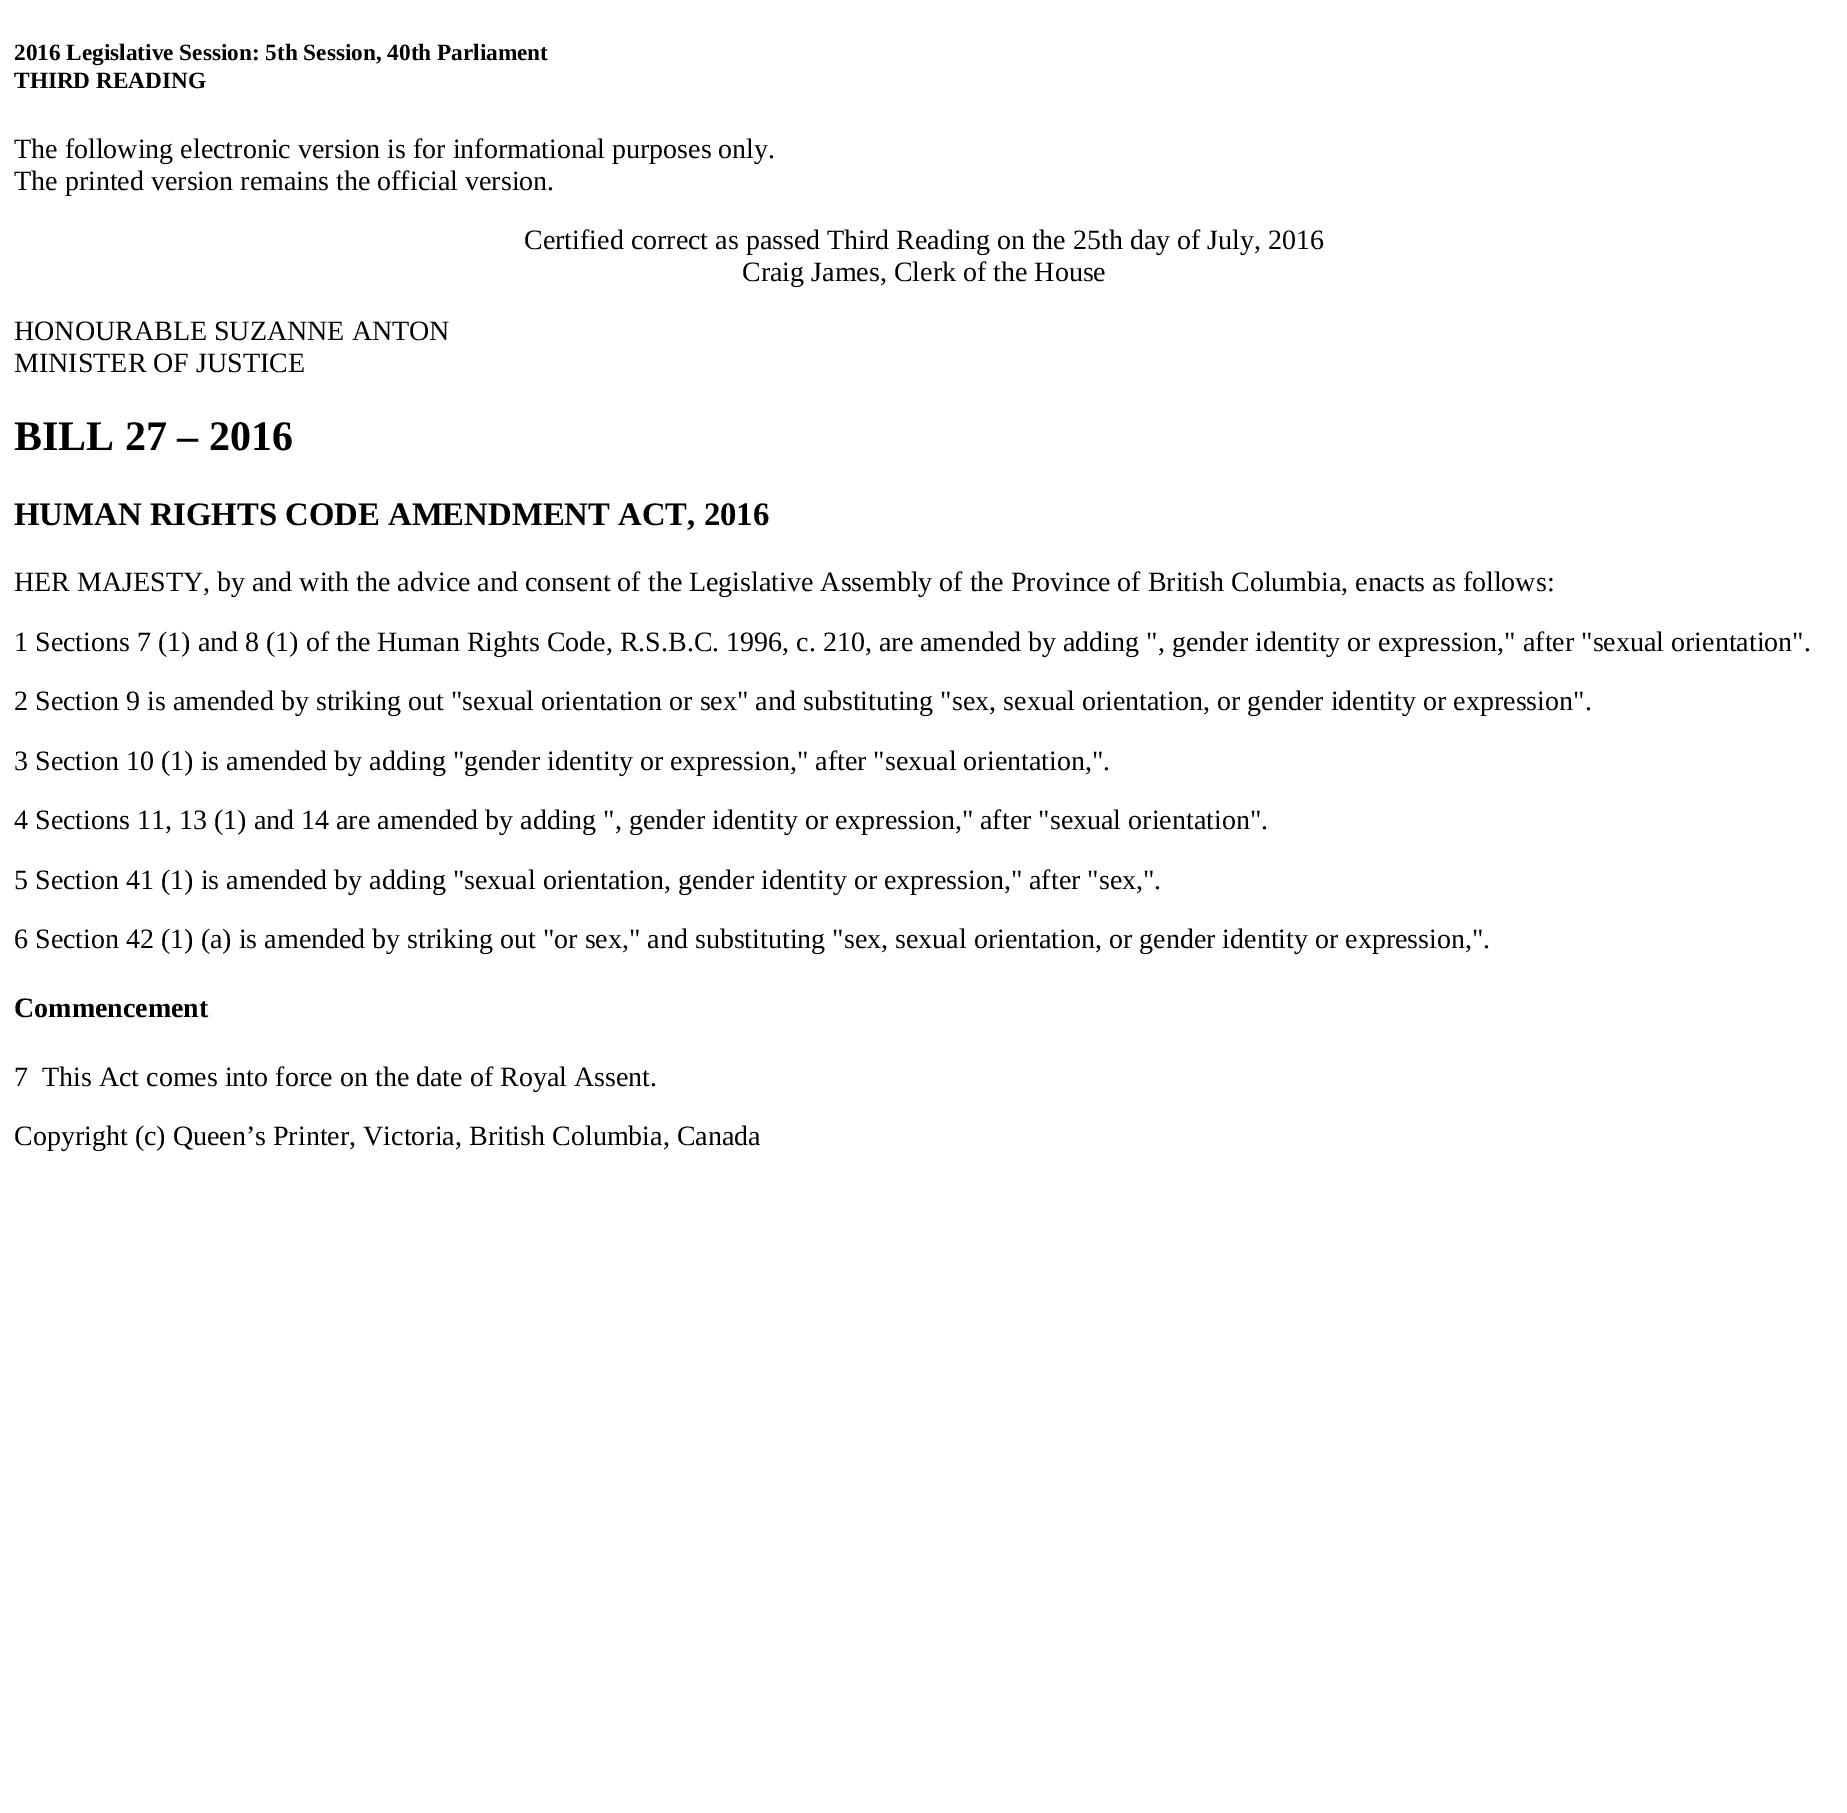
%!PS-Adobe-3.0
%%BoundingBox: 0 0 1847 1813
%%LanguageLevel: 3
%%Pages: 1
%%EndComments
%%BeginProlog
/setink { 3 { 255 div 3 1 roll } repeat setrgbcolor } def
/usefont { [ exch dup neg 0 0 3 -1 roll 0 0 ] selectfont } def
/drawtext { setink usefont moveto show } def
/fillbox { setink rectfill } def
%%EndProlog
%%BeginSetup
<< /PageSize [1847 1813] >> setpagedevice
%%EndSetup
%%Page: 1 1
0 1813 translate 1 -1 scale
4 setmiterlimit
0 0 1847 1813 255 255 255 fillbox
(2016 Legislative Session: 5th Session, 40th Parliament) 14 60 /LiberationSerif-Bold 23.25 0 0 0 drawtext
(THIRD READING) 14 88 /LiberationSerif-Bold 23.25 0 0 0 drawtext
(The following electronic version is for informational purposes only.) 14 158 /LiberationSerif-Regular 28 0 0 0 drawtext
(The printed version remains the official version.) 14 190 /LiberationSerif-Regular 28 0 0 0 drawtext
(Certified correct as passed Third Reading on the 25th day of July, 2016) 524 249 /LiberationSerif-Regular 28 0 0 0 drawtext
(Craig James, Clerk of the House) 742 281 /LiberationSerif-Regular 28 0 0 0 drawtext
(HONOURABLE SUZANNE ANTON) 14 340 /LiberationSerif-Regular 28 0 0 0 drawtext
(MINISTER OF JUSTICE) 14 372 /LiberationSerif-Regular 28 0 0 0 drawtext
(BILL 27 – 2016) 14 450 /LiberationSerif-Bold 42 0 0 0 drawtext
(HUMAN RIGHTS CODE AMENDMENT ACT, 2016) 14 525 /LiberationSerif-Bold 32.75 0 0 0 drawtext
(HER MAJESTY, by and with the advice and consent of the Legislative Assembly of the Province of British Columbia, enacts as follows:) 14 591 /LiberationSerif-Regular 28 0 0 0 drawtext
(1 Sections 7 \(1\) and 8 \(1\) of the Human Rights Code, R.S.B.C. 1996, c. 210, are amended by adding ", gender identity or expression," after "sexual orientation".) 14 651 /LiberationSerif-Regular 28 0 0 0 drawtext
(2 Section 9 is amended by striking out "sexual orientation or sex" and substituting "sex, sexual orientation, or gender identity or expression".) 14 710 /LiberationSerif-Regular 28 0 0 0 drawtext
(3 Section 10 \(1\) is amended by adding "gender identity or expression," after "sexual orientation,".) 14 770 /LiberationSerif-Regular 28 0 0 0 drawtext
(4 Sections 11, 13 \(1\) and 14 are amended by adding ", gender identity or expression," after "sexual orientation".) 14 829 /LiberationSerif-Regular 28 0 0 0 drawtext
(5 Section 41 \(1\) is amended by adding "sexual orientation, gender identity or expression," after "sex,".) 14 889 /LiberationSerif-Regular 28 0 0 0 drawtext
(6 Section 42 \(1\) \(a\) is amended by striking out "or sex," and substituting "sex, sexual orientation, or gender identity or expression,".) 14 948 /LiberationSerif-Regular 28 0 0 0 drawtext
(Commencement) 14 1017 /LiberationSerif-Bold 28 0 0 0 drawtext
(7) 14 1086 /LiberationSerif-Regular 28 0 0 0 drawtext
(This Act comes into force on the date of Royal Assent.) 42 1086 /LiberationSerif-Regular 28 0 0 0 drawtext
(Copyright \(c\) Queen’s Printer, Victoria, British Columbia, Canada) 14 1145 /LiberationSerif-Regular 28 0 0 0 drawtext
showpage
%%EOF
